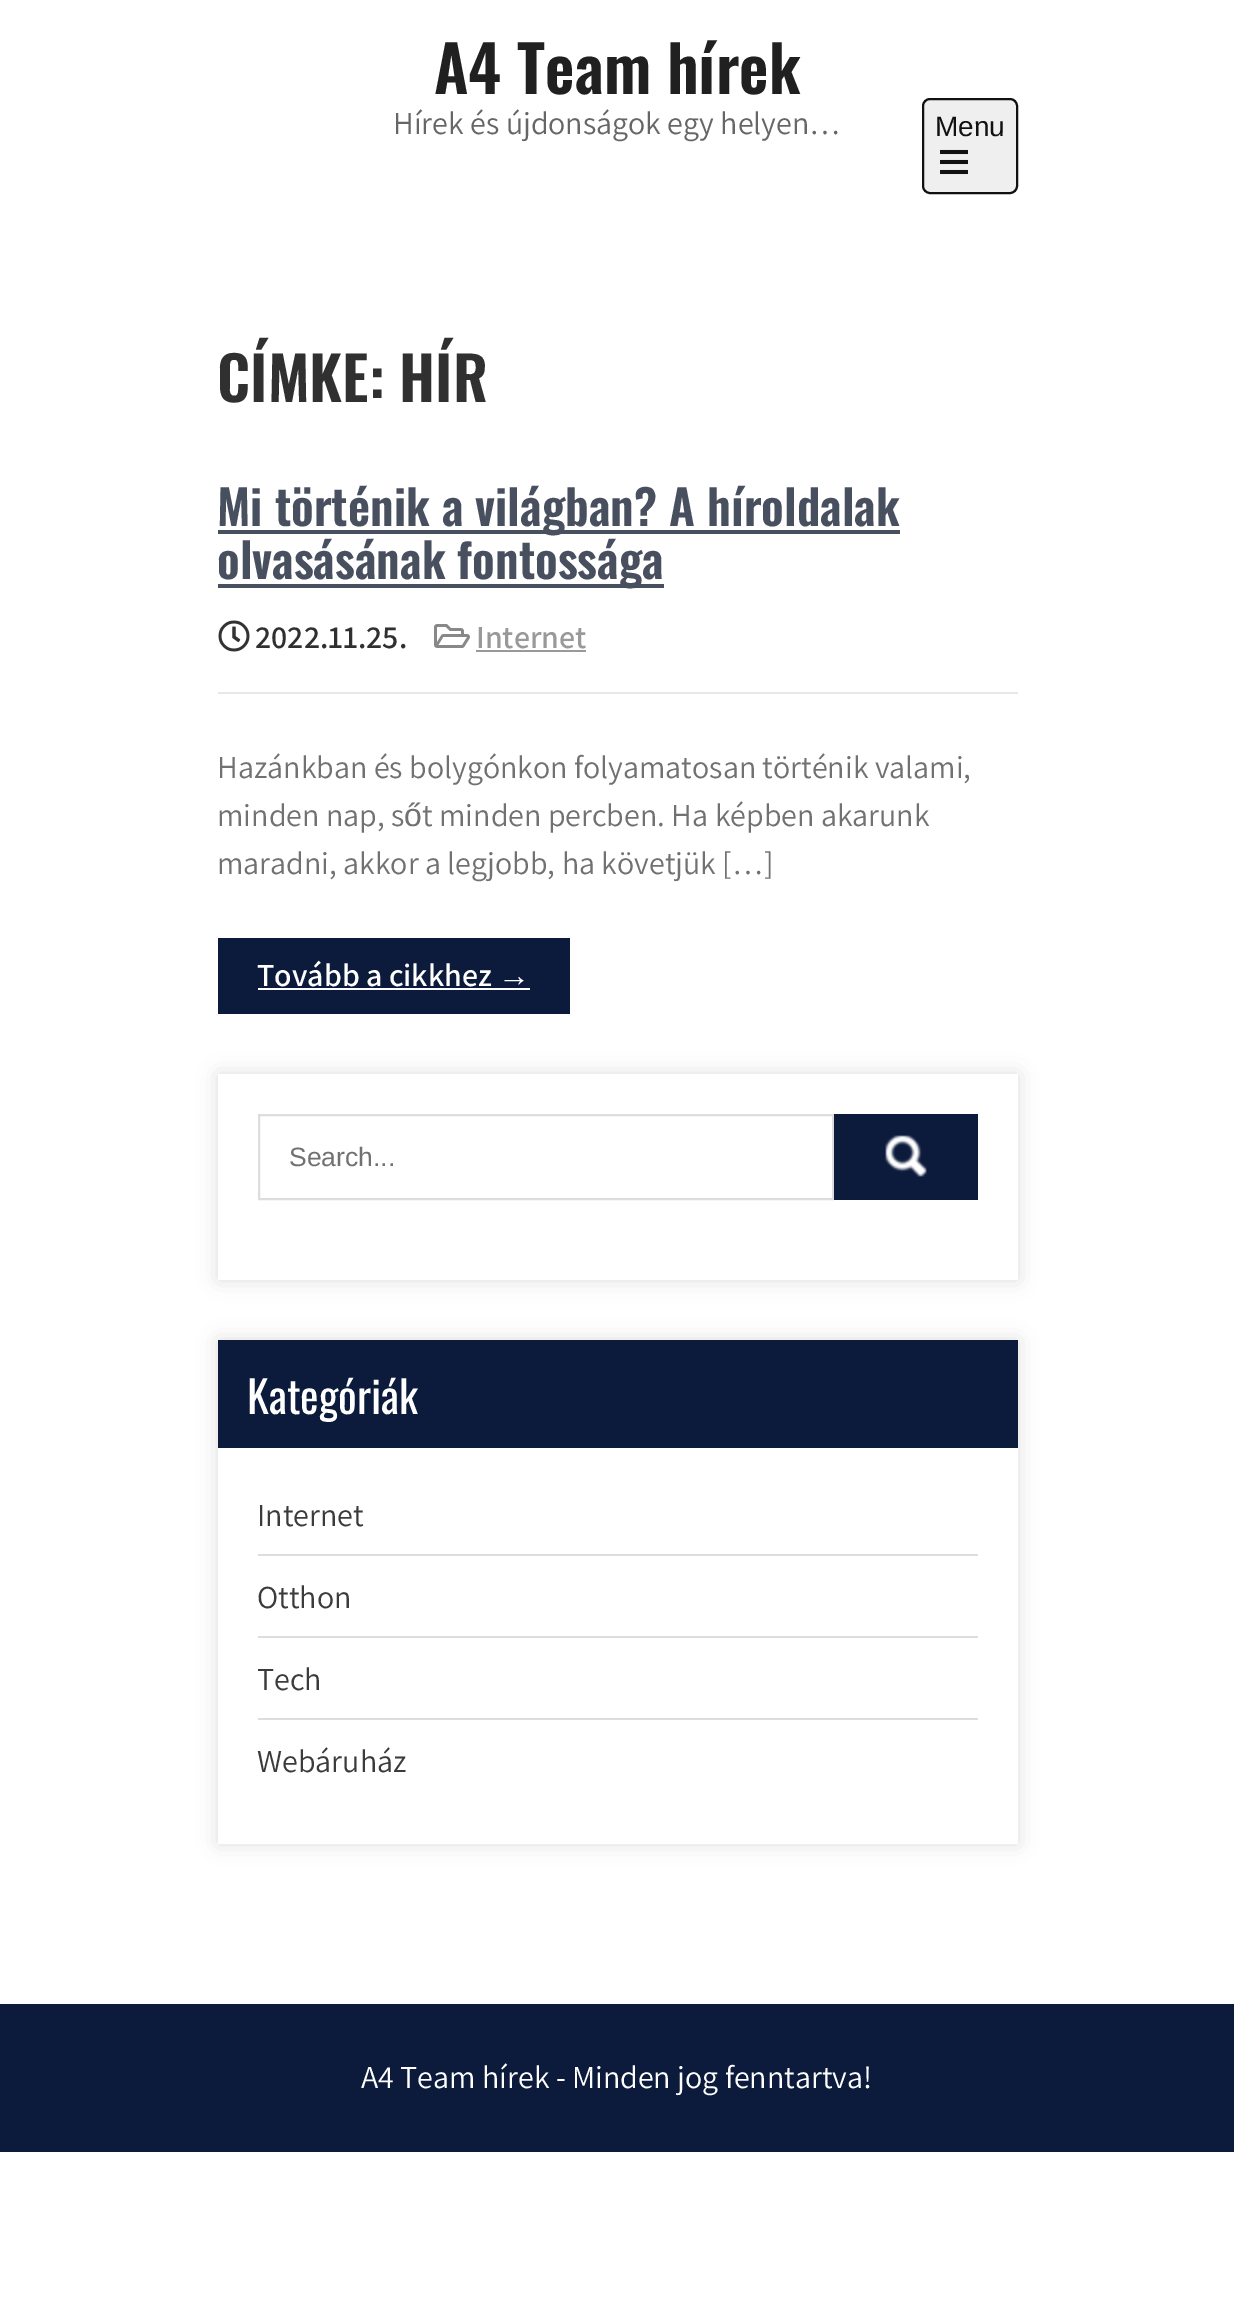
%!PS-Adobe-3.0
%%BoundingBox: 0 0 1234 2317
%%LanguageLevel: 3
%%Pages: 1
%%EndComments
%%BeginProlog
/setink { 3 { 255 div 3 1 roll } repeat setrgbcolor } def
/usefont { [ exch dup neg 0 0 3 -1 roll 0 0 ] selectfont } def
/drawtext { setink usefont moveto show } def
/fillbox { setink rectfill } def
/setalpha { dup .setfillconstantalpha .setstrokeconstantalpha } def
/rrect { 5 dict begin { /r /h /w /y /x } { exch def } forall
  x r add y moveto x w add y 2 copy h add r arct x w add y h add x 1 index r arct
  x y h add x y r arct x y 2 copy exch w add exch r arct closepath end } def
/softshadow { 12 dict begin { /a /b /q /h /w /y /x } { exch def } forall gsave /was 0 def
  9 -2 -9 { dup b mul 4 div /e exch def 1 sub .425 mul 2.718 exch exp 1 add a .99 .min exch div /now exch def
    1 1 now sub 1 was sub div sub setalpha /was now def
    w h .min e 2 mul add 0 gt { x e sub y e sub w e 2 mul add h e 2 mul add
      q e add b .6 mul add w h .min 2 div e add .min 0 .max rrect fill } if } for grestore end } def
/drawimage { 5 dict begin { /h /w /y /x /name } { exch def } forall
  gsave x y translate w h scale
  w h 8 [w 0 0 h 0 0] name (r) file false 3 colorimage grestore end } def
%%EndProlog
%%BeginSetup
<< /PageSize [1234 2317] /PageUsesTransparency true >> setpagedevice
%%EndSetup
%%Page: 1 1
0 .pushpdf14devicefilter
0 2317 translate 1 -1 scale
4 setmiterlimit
0 0 1234 2317 255 255 255 fillbox
(A4 Team hírek) 434 94 /Oswald-SemiBold 64 32 32 32 drawtext
(Hírek és újdonságok egy helyen…) 393 134 /Assistant-Regular 32 102 102 102 drawtext
239 239 239 setink
923 99 94 94 7 rrect gsave fill grestore
17 17 17 setink
2 setlinewidth
stroke
(Menu) 935 136 /LiberationSans-Regular 28 17 17 17 drawtext
(assets/img1.rgb) 940 149 28 26 drawimage
(CÍMKE: HÍR) 217 402 /Oswald-SemiBold 60 48 48 48 drawtext
218 530 682 4 72 79 94 fillbox
(Mi történik a világban? A híroldalak) 217 526 /Oswald-SemiBold 48 72 79 94 drawtext
218 584 446 4 72 79 94 fillbox
(olvasásának fontossága) 217 579 /Oswald-SemiBold 48 72 79 94 drawtext
218 692 800 2 232 232 232 fillbox
(assets/img2.rgb) 218 620 32 32 drawimage
(2022.11.25.) 255 648 /Assistant-SemiBold 32 48 48 48 drawtext
(assets/img3.rgb) 434 624 36 24 drawimage
(Internet) 476 648 /Assistant-SemiBold 32 153 153 153 drawtext
476 650 110 2 153 153 153 fillbox
(Hazánkban és bolygónkon folyamatosan történik valami,) 217 778 /Assistant-Regular 32 113 113 113 drawtext
(minden nap, s) 217 826 /Assistant-Regular 32 113 113 113 drawtext
(ő) 404 826 /LiberationSans-Regular 32 113 113 113 drawtext
(t minden percben. Ha képben akarunk) 422 826 /Assistant-Regular 32 113 113 113 drawtext
(maradni, akkor a legjobb, ha követjük […]) 217 874 /Assistant-Regular 32 113 113 113 drawtext
218 938 352 76 12 27 60 fillbox
(Tovább a cikkhez) 257 986 /Assistant-SemiBold 32 255 255 255 drawtext
(→) 498 986 /LiberationSans-Bold 32 255 255 255 drawtext
258 988 272 2 255 255 255 fillbox
gsave
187 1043 moveto 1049 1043 lineto 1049 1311 lineto 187 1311 lineto closepath 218 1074 moveto 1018 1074 lineto 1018 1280 lineto 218 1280 lineto closepath eoclip newpath
221 221 221 setink
218 1074 800 206 0 10 1 softshadow
grestore
221 221 221 setink
259 1115 574 84 rectstroke
(Search...) 289 1166 /LiberationSans-Regular 26.5 113 113 113 drawtext
834 1114 144 86 12 27 60 fillbox
(assets/img4.rgb) 885 1135 42 42 drawimage
gsave
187 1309 moveto 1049 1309 lineto 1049 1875 lineto 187 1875 lineto closepath 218 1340 moveto 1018 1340 lineto 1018 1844 lineto 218 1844 lineto closepath eoclip newpath
221 221 221 setink
218 1340 800 504 0 10 1 softshadow
grestore
218 1340 800 108 12 27 60 fillbox
(Kategóriák) 247 1414 /Oswald-Regular 44 255 255 255 drawtext
258 1554 720 2 221 221 221 fillbox
(Internet) 257 1526 /Assistant-Regular 32 59 59 59 drawtext
258 1636 720 2 221 221 221 fillbox
(Otthon) 257 1608 /Assistant-Regular 32 59 59 59 drawtext
258 1718 720 2 221 221 221 fillbox
(Tech) 257 1690 /Assistant-Regular 32 59 59 59 drawtext
(Webáruház) 257 1772 /Assistant-Regular 32 59 59 59 drawtext
0 2004 1234 148 12 27 60 fillbox
(A4 Team hírek - Minden jog fenntartva!) 361 2088 /Assistant-Regular 32 255 255 255 drawtext
.poppdf14devicefilter showpage
%%EOF
